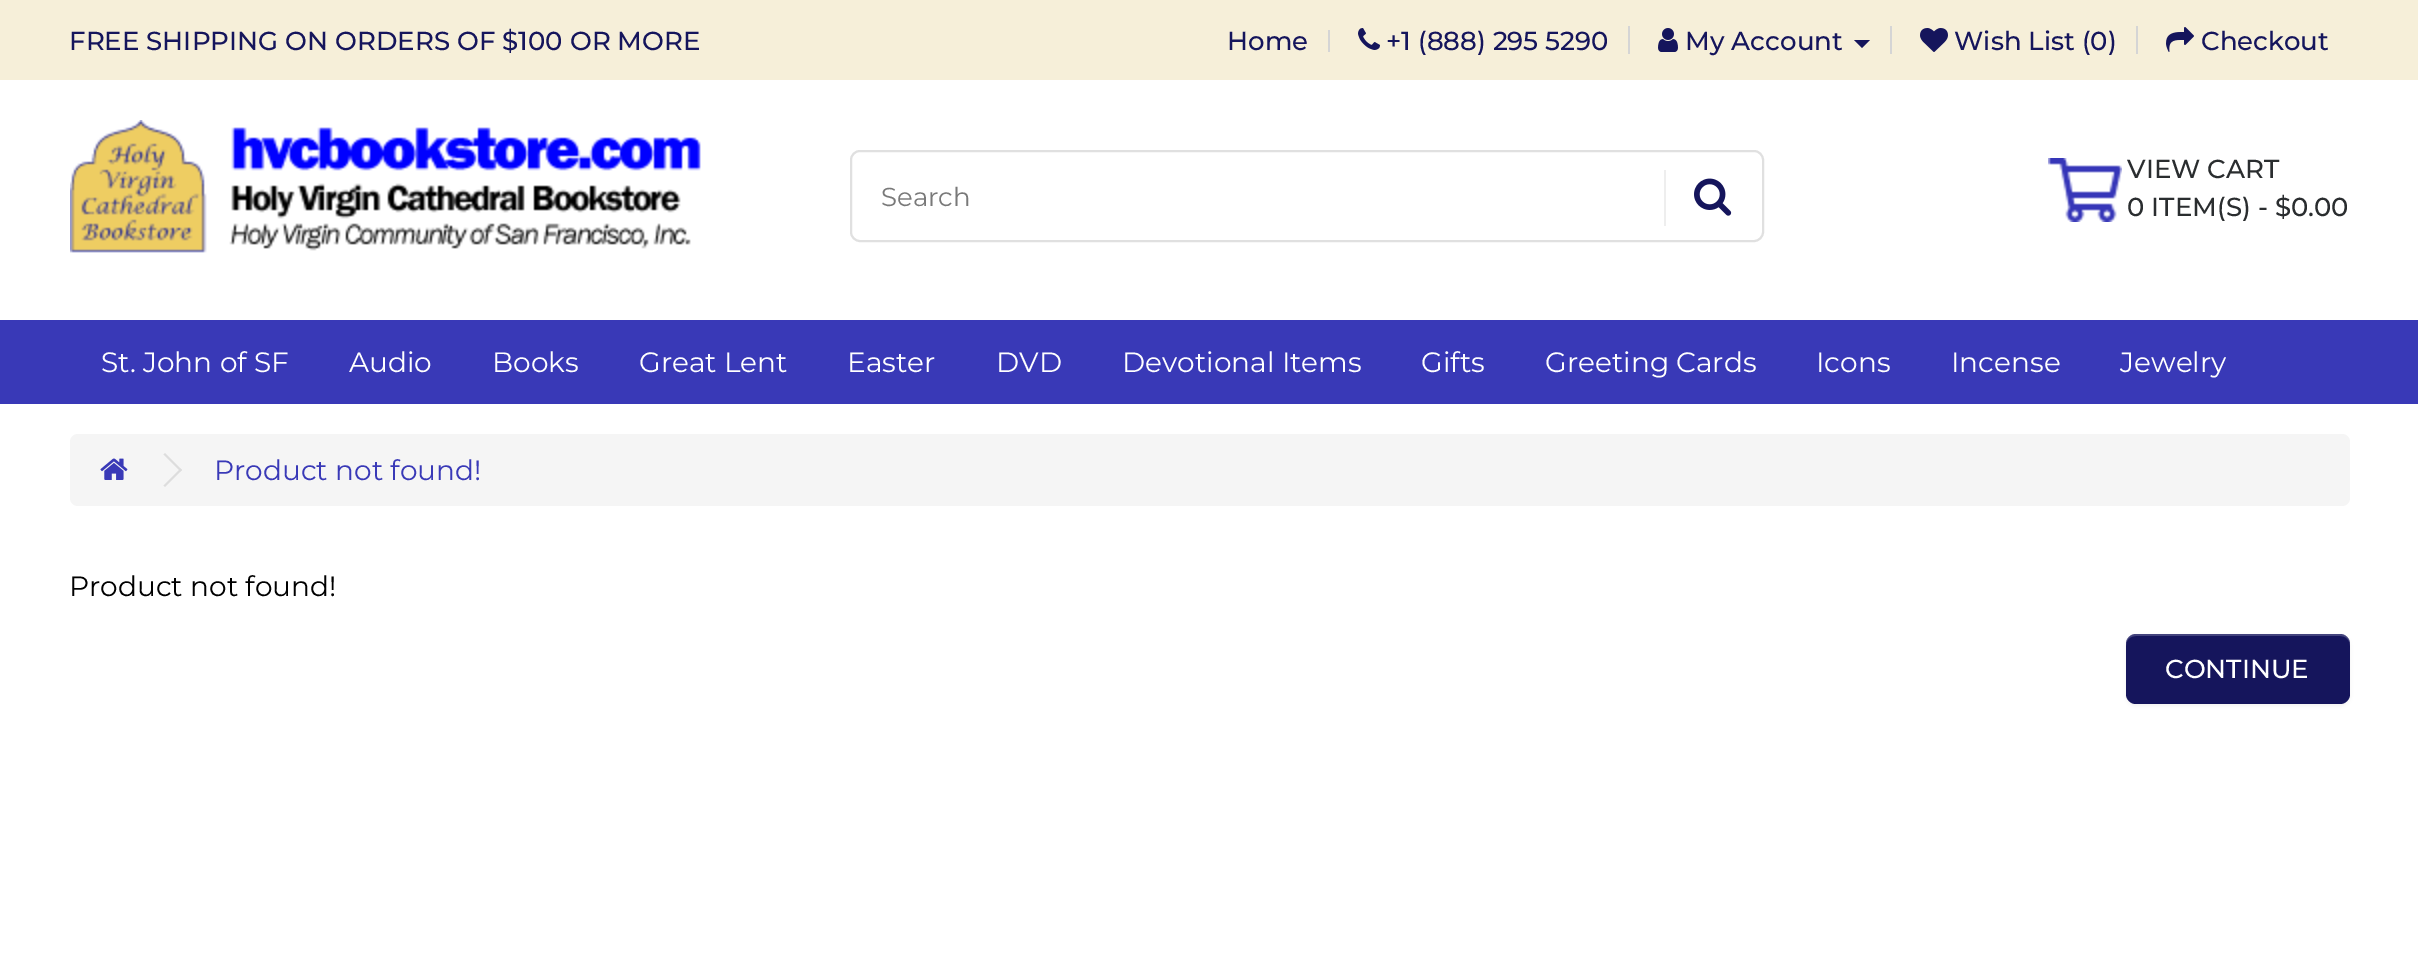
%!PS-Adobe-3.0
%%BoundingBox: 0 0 2418 957
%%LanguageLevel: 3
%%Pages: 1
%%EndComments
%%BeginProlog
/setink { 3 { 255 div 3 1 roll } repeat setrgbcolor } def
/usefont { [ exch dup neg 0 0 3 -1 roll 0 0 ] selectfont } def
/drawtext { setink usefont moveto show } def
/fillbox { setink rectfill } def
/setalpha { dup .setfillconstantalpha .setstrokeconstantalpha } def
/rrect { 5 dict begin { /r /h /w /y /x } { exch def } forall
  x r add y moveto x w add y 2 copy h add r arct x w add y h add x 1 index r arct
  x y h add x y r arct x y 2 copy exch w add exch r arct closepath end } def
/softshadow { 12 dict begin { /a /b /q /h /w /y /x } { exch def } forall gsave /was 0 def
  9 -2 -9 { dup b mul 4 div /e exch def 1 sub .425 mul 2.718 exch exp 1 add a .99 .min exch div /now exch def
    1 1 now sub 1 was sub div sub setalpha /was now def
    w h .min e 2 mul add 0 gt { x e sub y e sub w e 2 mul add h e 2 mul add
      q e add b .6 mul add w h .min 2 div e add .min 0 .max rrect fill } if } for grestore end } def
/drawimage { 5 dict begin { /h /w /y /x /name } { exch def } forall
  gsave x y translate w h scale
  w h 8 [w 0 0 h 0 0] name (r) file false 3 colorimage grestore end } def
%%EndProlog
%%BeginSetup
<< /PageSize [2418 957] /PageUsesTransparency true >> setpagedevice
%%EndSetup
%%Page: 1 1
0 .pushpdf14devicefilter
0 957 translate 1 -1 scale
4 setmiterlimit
0 0 2418 957 255 255 255 fillbox
0 0 2418 80 246 239 217 fillbox
(FREE SHIPPING ON ORDERS OF $100 OR MORE) 69 50 /Montserrat-Medium 26 21 21 92 drawtext
1328 30 2 22 213 213 213 fillbox
(Home) 1227 50 /Montserrat-Medium 26 21 21 92 drawtext
1628 26 2 28 213 213 213 fillbox
(assets/img1.rgb) 1358 28 22 22 drawimage
(+1 \(888\) 295 5290) 1386 50 /Montserrat-Medium 26 21 21 92 drawtext
1890 26 2 28 213 213 213 fillbox
(assets/img2.rgb) 1658 28 20 24 drawimage
(My Account) 1685 50 /Montserrat-Medium 26 21 21 92 drawtext
1854 40 moveto 1870 40 lineto 1862 48 lineto closepath fill
2136 26 2 28 213 213 213 fillbox
(assets/img3.rgb) 1920 28 28 24 drawimage
(Wish List \(0\)) 1954 50 /Montserrat-Medium 26 21 21 92 drawtext
(assets/img4.rgb) 2166 27 28 25 drawimage
(Checkout) 2201 50 /Montserrat-Medium 26 21 21 92 drawtext
(assets/img5.rgb) 70 120 631 133 drawimage
224 224 224 setink
2 setlinewidth
851 151 912 90 9 rrect stroke
(Search) 881 206 /Montserrat-Regular 26 121 121 121 drawtext
1664 170 2 56 238 238 238 fillbox
(assets/img6.rgb) 1694 178 38 38 drawimage
(assets/img7.rgb) 2048 158 74 64 drawimage
(VIEW CART) 2127 178 /Montserrat-Medium 26 42 45 47 drawtext
(0 ITEM\(S\) - $0.00) 2127 216 /Montserrat-Medium 26 42 45 47 drawtext
0 320 2418 84 57 57 183 fillbox
(St. John of SF) 101 372 /Montserrat-Regular 28 255 255 255 drawtext
(Audio) 349 372 /Montserrat-Regular 28 255 255 255 drawtext
(Books) 492 372 /Montserrat-Regular 28 255 255 255 drawtext
(Great Lent) 639 372 /Montserrat-Regular 28 255 255 255 drawtext
(Easter) 847 372 /Montserrat-Regular 28 255 255 255 drawtext
(DVD) 996 372 /Montserrat-Regular 28 255 255 255 drawtext
(Devotional Items) 1122 372 /Montserrat-Regular 28 255 255 255 drawtext
(Gifts) 1421 372 /Montserrat-Regular 28 255 255 255 drawtext
(Greeting Cards) 1545 372 /Montserrat-Regular 28 255 255 255 drawtext
(Icons) 1816 372 /Montserrat-Regular 28 255 255 255 drawtext
(Incense) 1951 372 /Montserrat-Regular 28 255 255 255 drawtext
(Jewelry) 2120 372 /Montserrat-Regular 28 255 255 255 drawtext
245 245 245 setink
70 434 2280 72 8 rrect fill
(assets/img8.rgb) 100 458 28 22 drawimage
221 221 221 setink
163.5 454.5 moveto 165 453 lineto 182 470 lineto 180.5 471.5 lineto closepath fill
163.5 485.5 moveto 180.5 468.5 lineto 182 470 lineto 165 487 lineto closepath fill
(Product not found!) 214 480 /Montserrat-Regular 28 57 57 183 drawtext
(Product not found!) 69 596 /Montserrat-Regular 28 0 0 0 drawtext
2126 636 224 70 10 2 0.05 softshadow
21 21 92 setink
2126 634 224 70 10 rrect fill
0.2 setalpha
255 255 255 setink
2136 636 moveto 2340 636 lineto 2346 636 2350 640 2350 646 curveto 2350 644 lineto 2350 638 2346 634 2340 634 curveto 2136 634 lineto 2130 634 2126 638 2126 644 curveto 2126 646 lineto 2126 640 2130 636 2136 636 curveto closepath fill
1 setalpha
(CONTINUE) 2165 678 /Montserrat-Medium 26 255 255 255 drawtext
.poppdf14devicefilter showpage
%%EOF
